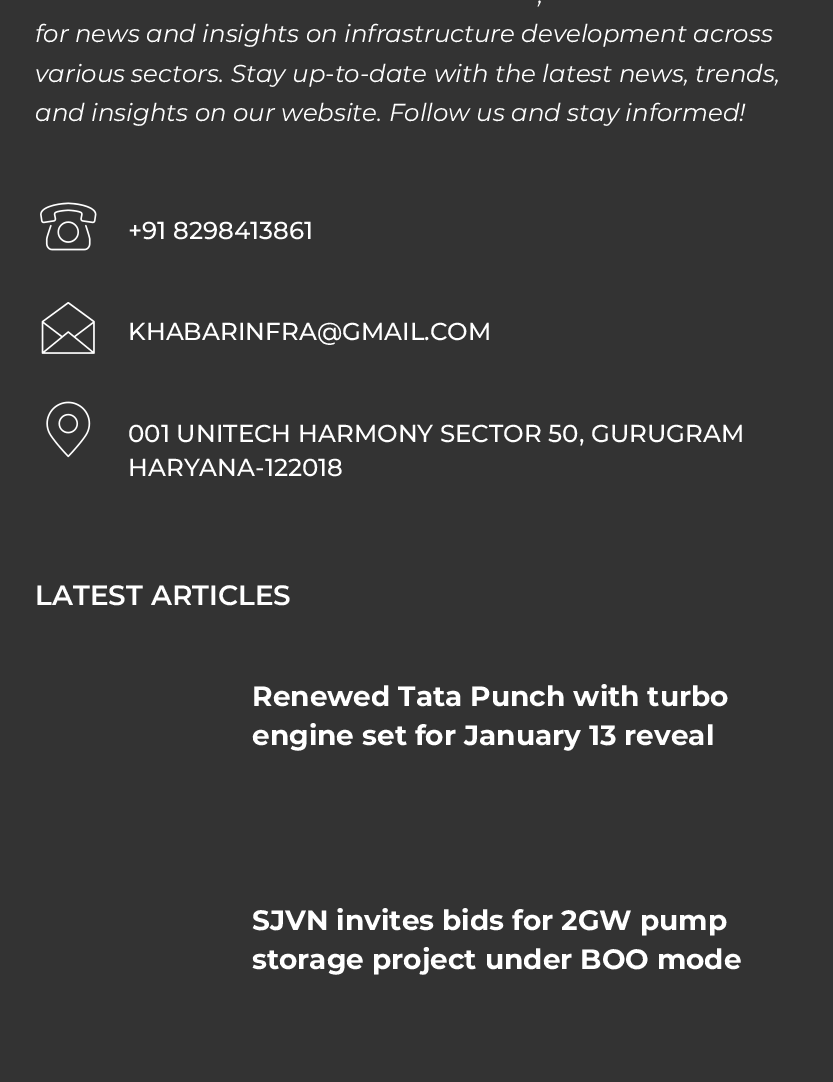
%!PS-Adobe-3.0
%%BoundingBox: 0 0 833 1082
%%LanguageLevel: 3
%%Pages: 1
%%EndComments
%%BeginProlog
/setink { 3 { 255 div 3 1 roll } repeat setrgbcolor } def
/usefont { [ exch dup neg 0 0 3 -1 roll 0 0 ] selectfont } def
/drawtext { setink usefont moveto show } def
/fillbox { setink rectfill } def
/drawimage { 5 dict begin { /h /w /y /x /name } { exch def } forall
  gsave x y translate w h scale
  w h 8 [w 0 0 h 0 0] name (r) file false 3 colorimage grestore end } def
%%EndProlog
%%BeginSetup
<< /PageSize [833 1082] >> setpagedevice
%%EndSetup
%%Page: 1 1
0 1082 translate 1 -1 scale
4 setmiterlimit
0 0 833 1082 51 51 51 fillbox
(,) 538 3 /Montserrat-Italic 24.5 255 255 255 drawtext
(for news and insights on infrastructure development across) 35 42 /Montserrat-Italic 24.5 255 255 255 drawtext
(various sectors. Stay up-to-date with the latest news, trends,) 35 82 /Montserrat-Italic 24.5 255 255 255 drawtext
(and insights on our website. Follow us and stay informed!) 35 121 /Montserrat-Italic 24.5 255 255 255 drawtext
(assets/img1.rgb) 40 202 57 49 drawimage
(+91 8298413861) 128 239 /Montserrat-Medium 24.5 255 255 255 drawtext
(assets/img2.rgb) 41 302 54 52 drawimage
(KHABARINFRA@GMAIL.COM) 128 340 /Montserrat-Medium 24.5 255 255 255 drawtext
(assets/img3.rgb) 46 401 45 57 drawimage
(001 UNITECH HARMONY SECTOR 50, GURUGRAM) 128 442 /Montserrat-Medium 24.5 255 255 255 drawtext
(HARYANA-122018) 128 476 /Montserrat-Medium 24.5 255 255 255 drawtext
(LATEST ARTICLES) 35 605 /Montserrat-SemiBold 28 255 255 255 drawtext
(Renewed Tata Punch with turbo) 252 706 /Montserrat-Bold 28 255 255 255 drawtext
(engine set for January 13 reveal) 252 745 /Montserrat-Bold 28 255 255 255 drawtext
(SJVN invites bids for 2GW pump) 252 930 /Montserrat-Bold 28 255 255 255 drawtext
(storage project under BOO mode) 252 969 /Montserrat-Bold 28 255 255 255 drawtext
showpage
%%EOF
